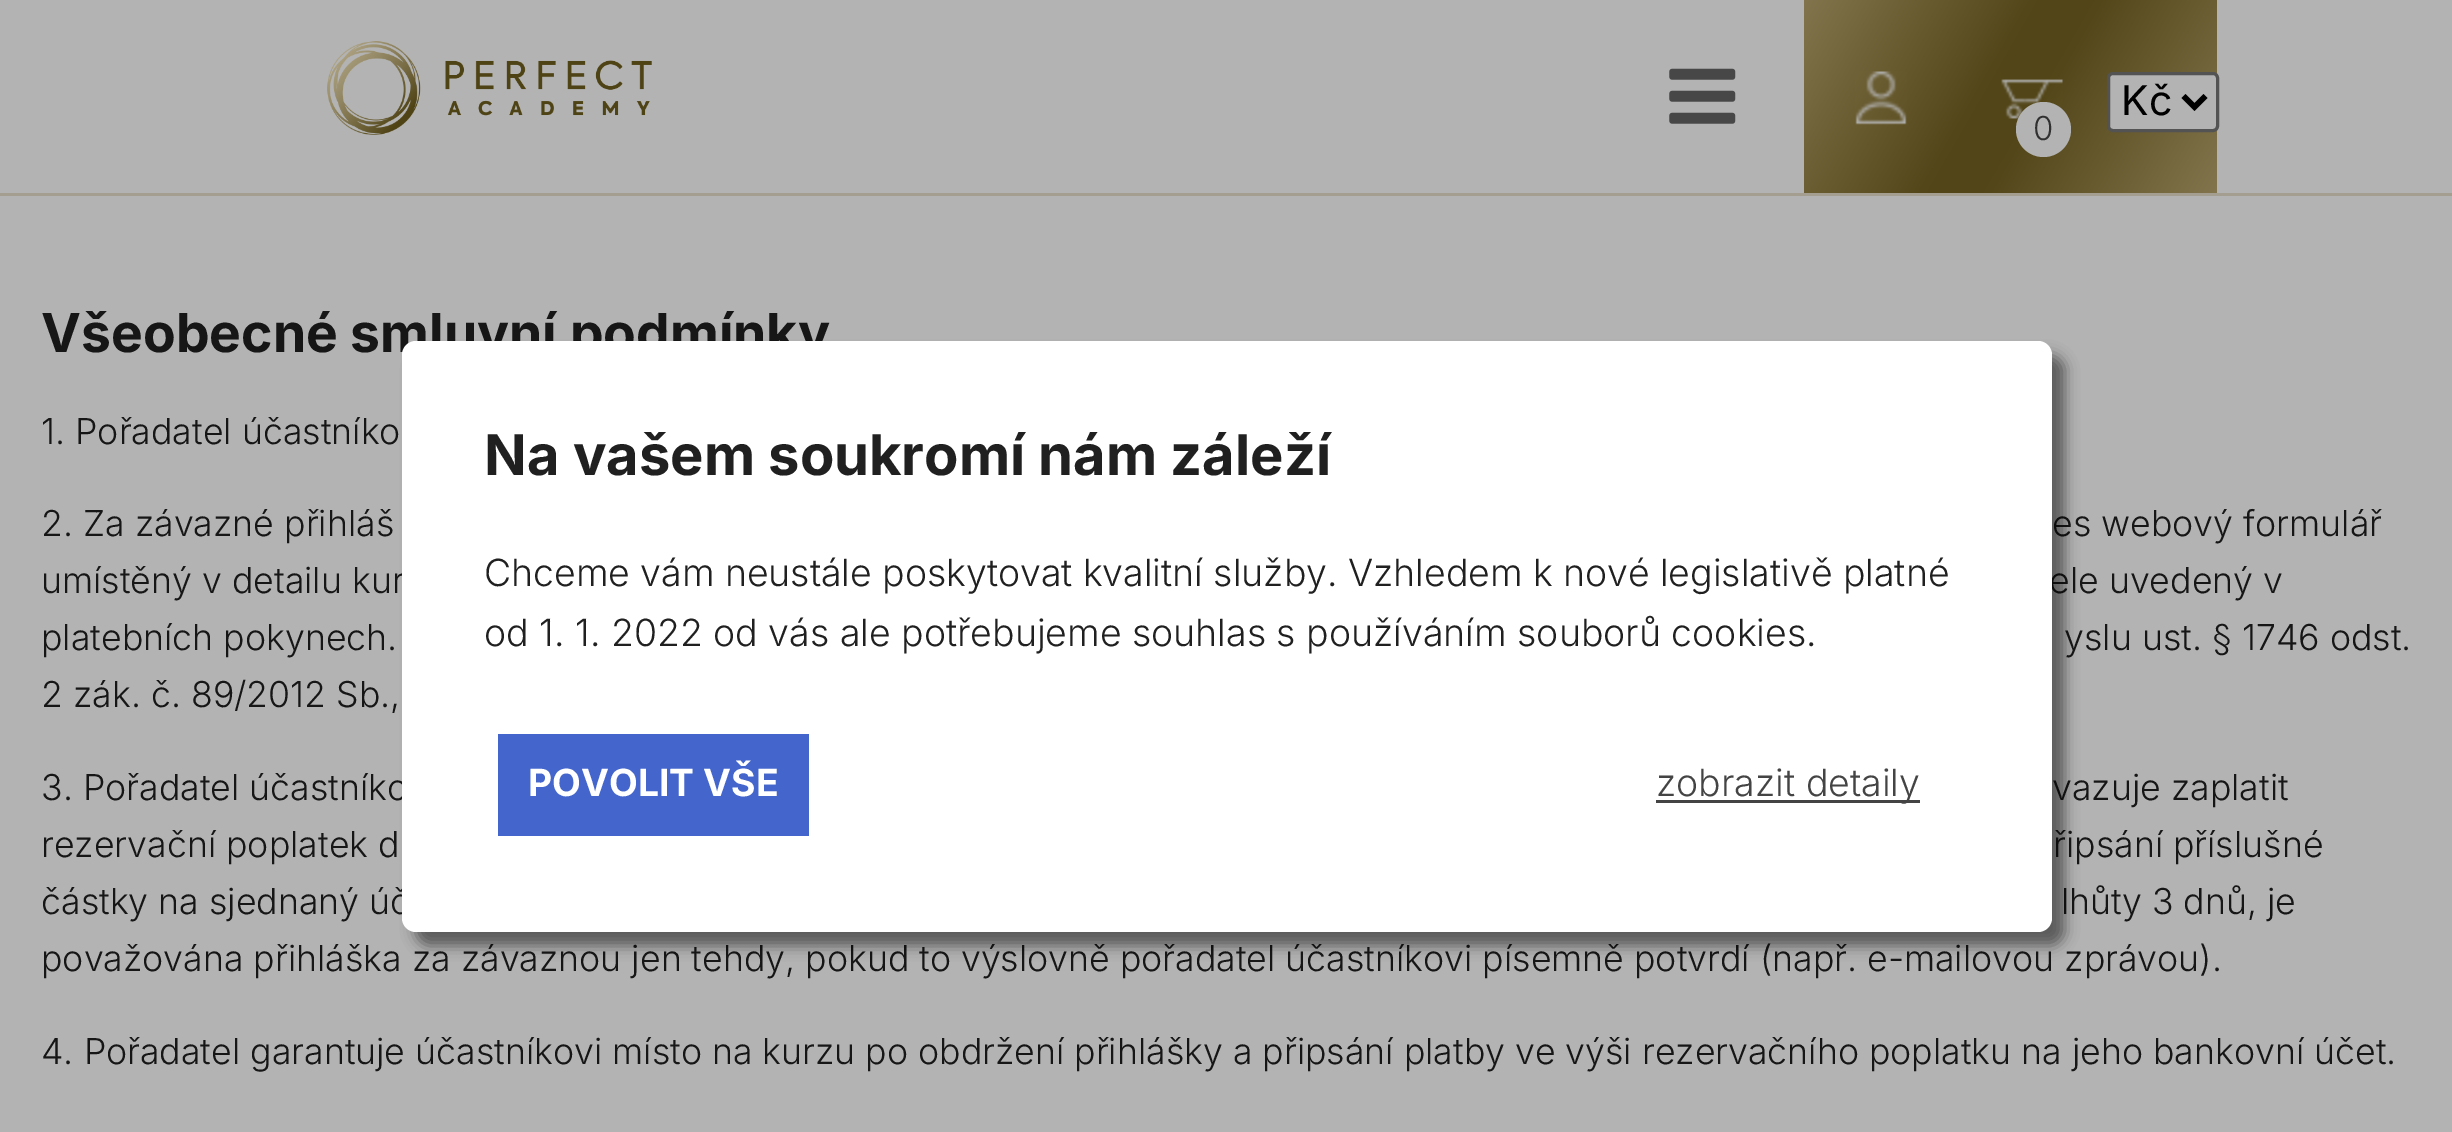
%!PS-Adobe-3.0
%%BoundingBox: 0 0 2452 1132
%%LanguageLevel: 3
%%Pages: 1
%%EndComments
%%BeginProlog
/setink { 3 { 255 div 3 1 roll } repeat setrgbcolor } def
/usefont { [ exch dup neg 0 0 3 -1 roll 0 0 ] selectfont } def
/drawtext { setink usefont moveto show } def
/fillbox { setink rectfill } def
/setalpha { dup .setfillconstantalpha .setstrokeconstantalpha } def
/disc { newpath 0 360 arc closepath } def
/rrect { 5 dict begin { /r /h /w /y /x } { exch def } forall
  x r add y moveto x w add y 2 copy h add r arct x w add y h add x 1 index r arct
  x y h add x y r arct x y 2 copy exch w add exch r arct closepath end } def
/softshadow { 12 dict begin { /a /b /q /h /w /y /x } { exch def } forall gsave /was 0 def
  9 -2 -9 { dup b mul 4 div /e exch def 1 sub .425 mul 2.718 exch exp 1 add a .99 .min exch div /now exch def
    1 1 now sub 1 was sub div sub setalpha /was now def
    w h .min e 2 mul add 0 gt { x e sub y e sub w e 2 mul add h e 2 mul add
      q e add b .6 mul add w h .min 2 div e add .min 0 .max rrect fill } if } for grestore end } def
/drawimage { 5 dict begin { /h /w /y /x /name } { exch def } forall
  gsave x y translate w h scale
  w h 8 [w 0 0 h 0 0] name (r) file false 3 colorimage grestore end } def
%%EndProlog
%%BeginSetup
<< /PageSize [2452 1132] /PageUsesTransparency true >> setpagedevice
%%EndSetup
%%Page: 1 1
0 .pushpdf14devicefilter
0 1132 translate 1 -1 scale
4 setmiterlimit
0 0 2452 1132 179 179 179 fillbox
0 193 2452 3 163 158 143 fillbox
(assets/img1.rgb) 327 41 325 94 drawimage
(assets/img2.rgb) 1669 68 67 56 drawimage
gsave 1804 0 moveto 2217 0 lineto 2217 193 lineto 1804 193 lineto closepath clip newpath
<< /ShadingType 2 /ColorSpace /DeviceRGB /Coords [1814 -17 2207 210] /Extend [true true] /Function << /FunctionType 3 /Domain [0 1] /Functions [<< /FunctionType 2 /Domain [0 1] /C0 [0.51 0.455 0.298] /C1 [0.322 0.271 0.094] /N 1 >> << /FunctionType 2 /Domain [0 1] /C0 [0.322 0.271 0.094] /C1 [0.322 0.271 0.094] /N 1 >> << /FunctionType 2 /Domain [0 1] /C0 [0.322 0.271 0.094] /C1 [0.51 0.455 0.298] /N 1 >>] /Bounds [0.45 0.55] /Encode [0 1 0 1 0 1] >> >> shfill grestore
(assets/img3.rgb) 1855 71 52 54 drawimage
179 179 179 setink
2108.5 73.5 109 57 4.5 rrect gsave fill grestore
83 83 83 setink
3 setlinewidth
stroke
0 0 0 setink
5.5 setlinewidth
2183.5 96 moveto 2194.5 107 lineto 2205.5 96 lineto stroke
(Kč) 2121 115 /Inter-Regular 41 0 0 0 drawtext
(assets/img4.rgb) 2001 79 62 40 drawimage
179 179 179 setink
2043.5 129.5 27.5 disc fill
(0) 2033 140 /Inter-Light 33 48 48 48 drawtext
(Všeobecné smluvní podmínky) 41 352 /Inter-Bold 53.5 22 22 22 drawtext
(1. Pořadatel účastníko) 41 444 /Inter-Light 35.65 22 22 22 drawtext
(2. Za závazné přihláš) 41 536 /Inter-Light 35.65 22 22 22 drawtext
(es webový formulář) 2052 536 /Inter-Light 35.65 22 22 22 drawtext
(umístěný v detailu kur) 41 593 /Inter-Light 35.65 22 22 22 drawtext
(ele uvedený v) 2049 593 /Inter-Light 35.65 22 22 22 drawtext
(platebních pokynech.) 41 650 /Inter-Light 35.65 22 22 22 drawtext
(yslu ust. § 1746 odst.) 2064 650 /Inter-Light 35.65 22 22 22 drawtext
(2 zák. č. 89/2012 Sb.,) 41 707 /Inter-Light 35.65 22 22 22 drawtext
(3. Pořadatel účastníko) 41 800 /Inter-Light 35.65 22 22 22 drawtext
(vazuje zaplatit) 2052 800 /Inter-Light 35.65 22 22 22 drawtext
(rezervační poplatek d) 41 857 /Inter-Light 35.65 22 22 22 drawtext
(řipsání příslušné) 2053 857 /Inter-Light 35.65 22 22 22 drawtext
(částky na sjednaný úč) 41 914 /Inter-Light 35.65 22 22 22 drawtext
(lhůty 3 dnů, je) 2061 914 /Inter-Light 35.65 22 22 22 drawtext
(považována přihláška za závaznou jen tehdy, pokud to výslovně pořadatel účastníkovi písemně potvrdí \(např. e-mailovou zprávou\).) 41 971 /Inter-Light 35.65 22 22 22 drawtext
(4. Pořadatel garantuje účastníkovi místo na kurzu po obdržení přihlášky a připsání platby ve výši rezervačního poplatku na jeho bankovní účet.) 41 1064 /Inter-Light 35.65 22 22 22 drawtext
0 0 0 setink
415 355 1650 591 14 7 0.5 softshadow
255 255 255 setink
402 341 1650 591 14 rrect fill
(Na vašem soukromí nám záleží) 484 475 /Inter-Bold 56.1 32 32 32 drawtext
/Inter-Light 37.4 usefont
484 586 moveto -0.25 0 32 (Chceme vám neustále poskytovat kvalitní služby. Vzhledem k nové legislativě platné) widthshow
(od 1. 1. 2022 od vás ale potřebujeme souhlas s používáním souborů cookies.) 484 646 /Inter-Light 37.4 32 32 32 drawtext
498 734 311 102 68 102 204 fillbox
(POVOLIT VŠE) 528 796 /Inter-Bold 37.4 255 255 255 drawtext
1656 800 264 3 68 68 68 fillbox
(zobrazit detaily) 1656 796 /Inter-Light 37.4 68 68 68 drawtext
.poppdf14devicefilter showpage
%%EOF
